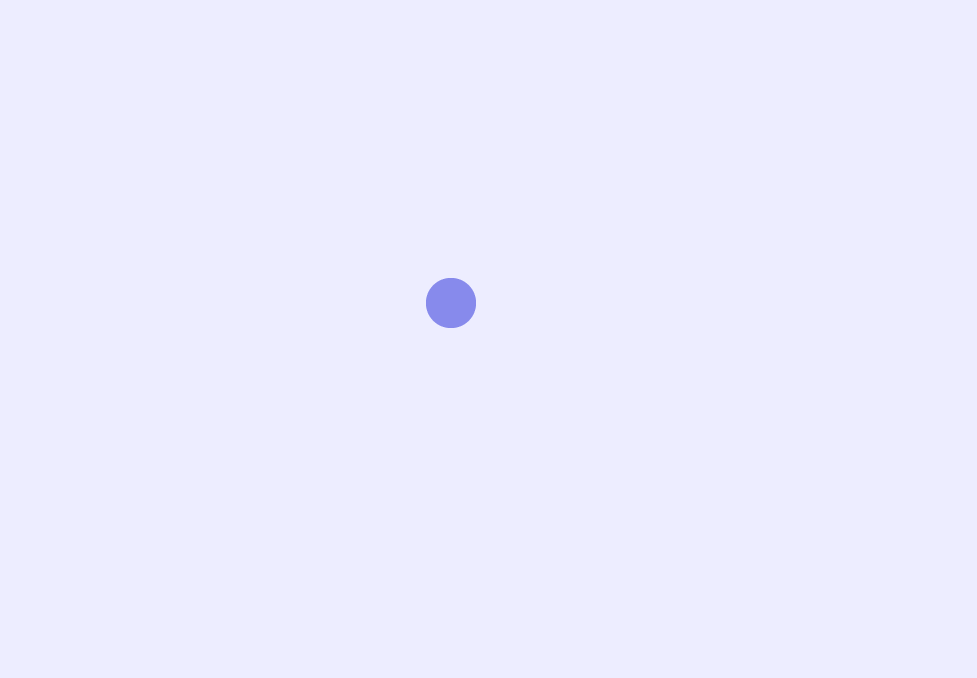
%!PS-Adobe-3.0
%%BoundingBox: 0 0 977 678
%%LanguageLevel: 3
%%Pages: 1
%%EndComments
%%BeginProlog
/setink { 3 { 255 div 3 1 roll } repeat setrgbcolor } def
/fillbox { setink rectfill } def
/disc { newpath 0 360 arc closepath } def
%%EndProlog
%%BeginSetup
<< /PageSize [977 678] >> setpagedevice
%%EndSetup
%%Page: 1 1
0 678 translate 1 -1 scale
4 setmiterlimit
0 0 977 678 237 237 255 fillbox
135 138 236 setink
451 303 25 disc fill
showpage
%%EOF
